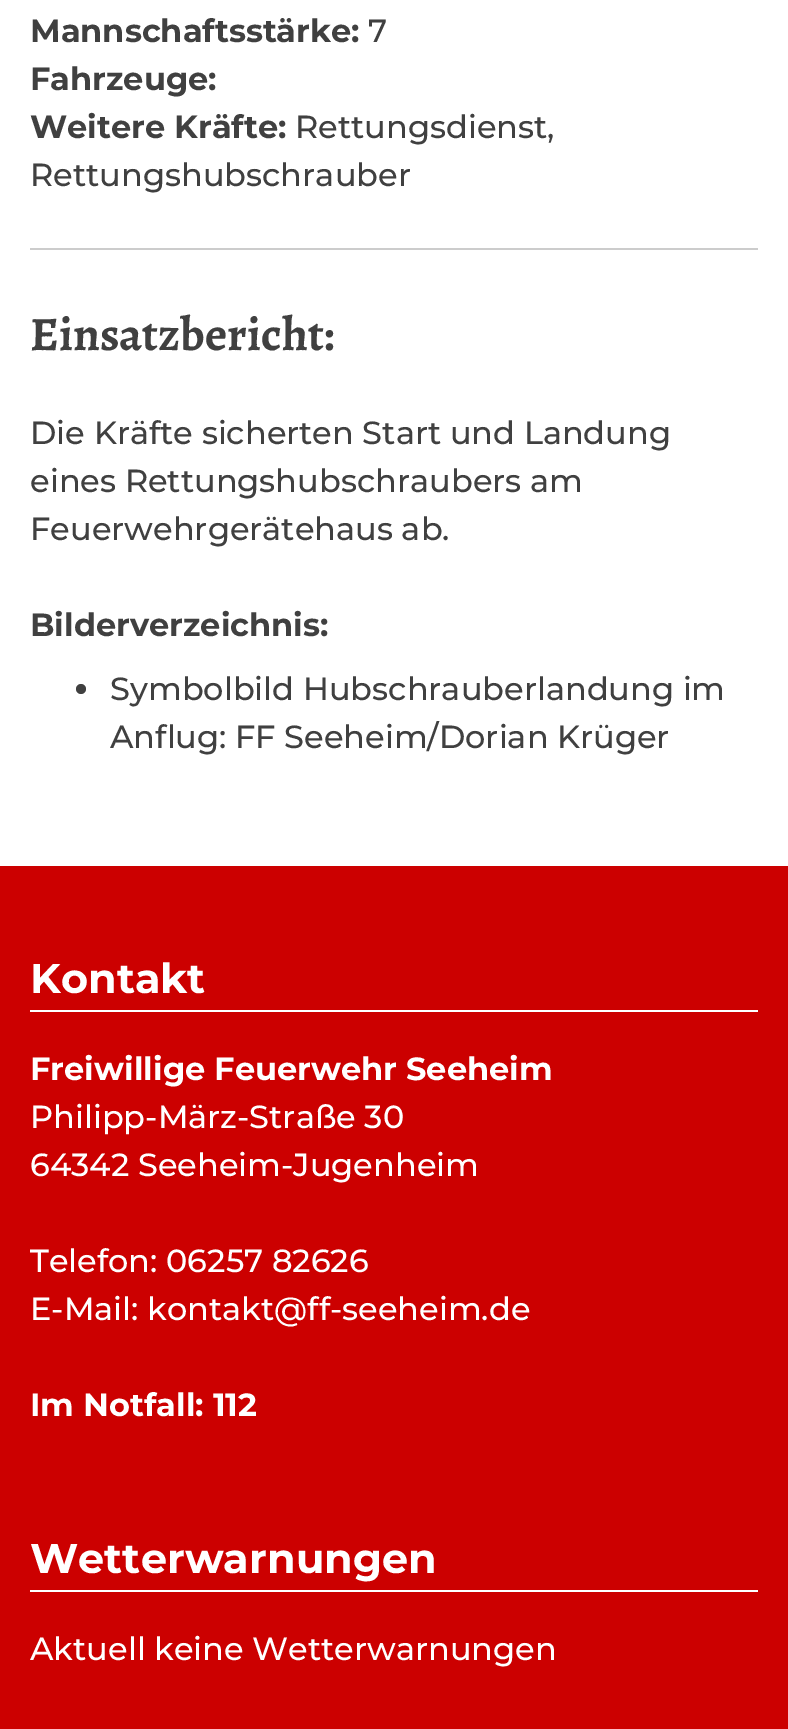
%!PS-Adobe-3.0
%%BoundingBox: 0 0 788 1729
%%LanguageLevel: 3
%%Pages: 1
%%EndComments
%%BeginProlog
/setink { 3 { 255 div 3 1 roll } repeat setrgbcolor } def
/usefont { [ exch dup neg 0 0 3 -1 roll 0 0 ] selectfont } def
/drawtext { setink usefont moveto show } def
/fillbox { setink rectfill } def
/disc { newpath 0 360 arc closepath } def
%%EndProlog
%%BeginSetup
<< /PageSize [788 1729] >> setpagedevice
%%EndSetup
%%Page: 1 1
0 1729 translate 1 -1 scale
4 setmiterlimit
0 0 788 1729 255 255 255 fillbox
(Mannschaftsstärke:) 30 42 /Montserrat-Bold 32 64 64 64 drawtext
(7) 368 42 /Montserrat-Medium 32 64 64 64 drawtext
(Fahrzeuge:) 30 90 /Montserrat-Bold 32 64 64 64 drawtext
(Weitere Kräfte:) 30 138 /Montserrat-Bold 32 64 64 64 drawtext
(Rettungsdienst,) 295 138 /Montserrat-Medium 32 64 64 64 drawtext
(Rettungshubschrauber) 30 186 /Montserrat-Medium 32 64 64 64 drawtext
30 248 728 2 204 204 204 fillbox
(Einsatzbericht:) 30 350 /Alegreya-Bold 48 64 64 64 drawtext
(Die Kräfte sicherten Start und Landung) 30 444 /Montserrat-Medium 32 64 64 64 drawtext
(eines Rettungshubschraubers am) 30 492 /Montserrat-Medium 32 64 64 64 drawtext
(Feuerwehrgerätehaus ab.) 30 540 /Montserrat-Medium 32 64 64 64 drawtext
(Bilderverzeichnis:) 30 636 /Montserrat-Bold 32 64 64 64 drawtext
81 689 5 disc fill
(Symbolbild Hubschrauberlandung im) 110 700 /Montserrat-Medium 32 64 64 64 drawtext
(Anflug: FF Seeheim/Dorian Krüger) 110 748 /Montserrat-Medium 32 64 64 64 drawtext
0 866 788 863 204 0 0 fillbox
30 1010 728 2 255 255 255 fillbox
(Kontakt) 30 993 /Montserrat-Bold 41.5 255 255 255 drawtext
(Freiwillige Feuerwehr Seeheim) 30 1080 /Montserrat-Bold 32 255 255 255 drawtext
(Philipp-März-Straße 30) 30 1128 /Montserrat-Medium 32 255 255 255 drawtext
(64342 Seeheim-Jugenheim) 30 1176 /Montserrat-Medium 32 255 255 255 drawtext
(Telefon: 06257 82626) 30 1272 /Montserrat-Medium 32 255 255 255 drawtext
(E-Mail: kontakt@ff-seeheim.de) 30 1320 /Montserrat-Medium 32 255 255 255 drawtext
(Im Notfall: 112) 30 1416 /Montserrat-Bold 32 255 255 255 drawtext
30 1590 728 2 255 255 255 fillbox
(Wetterwarnungen) 30 1573 /Montserrat-Bold 41.5 255 255 255 drawtext
(Aktuell keine Wetterwarnungen) 30 1660 /Montserrat-Medium 32 255 255 255 drawtext
showpage
%%EOF
